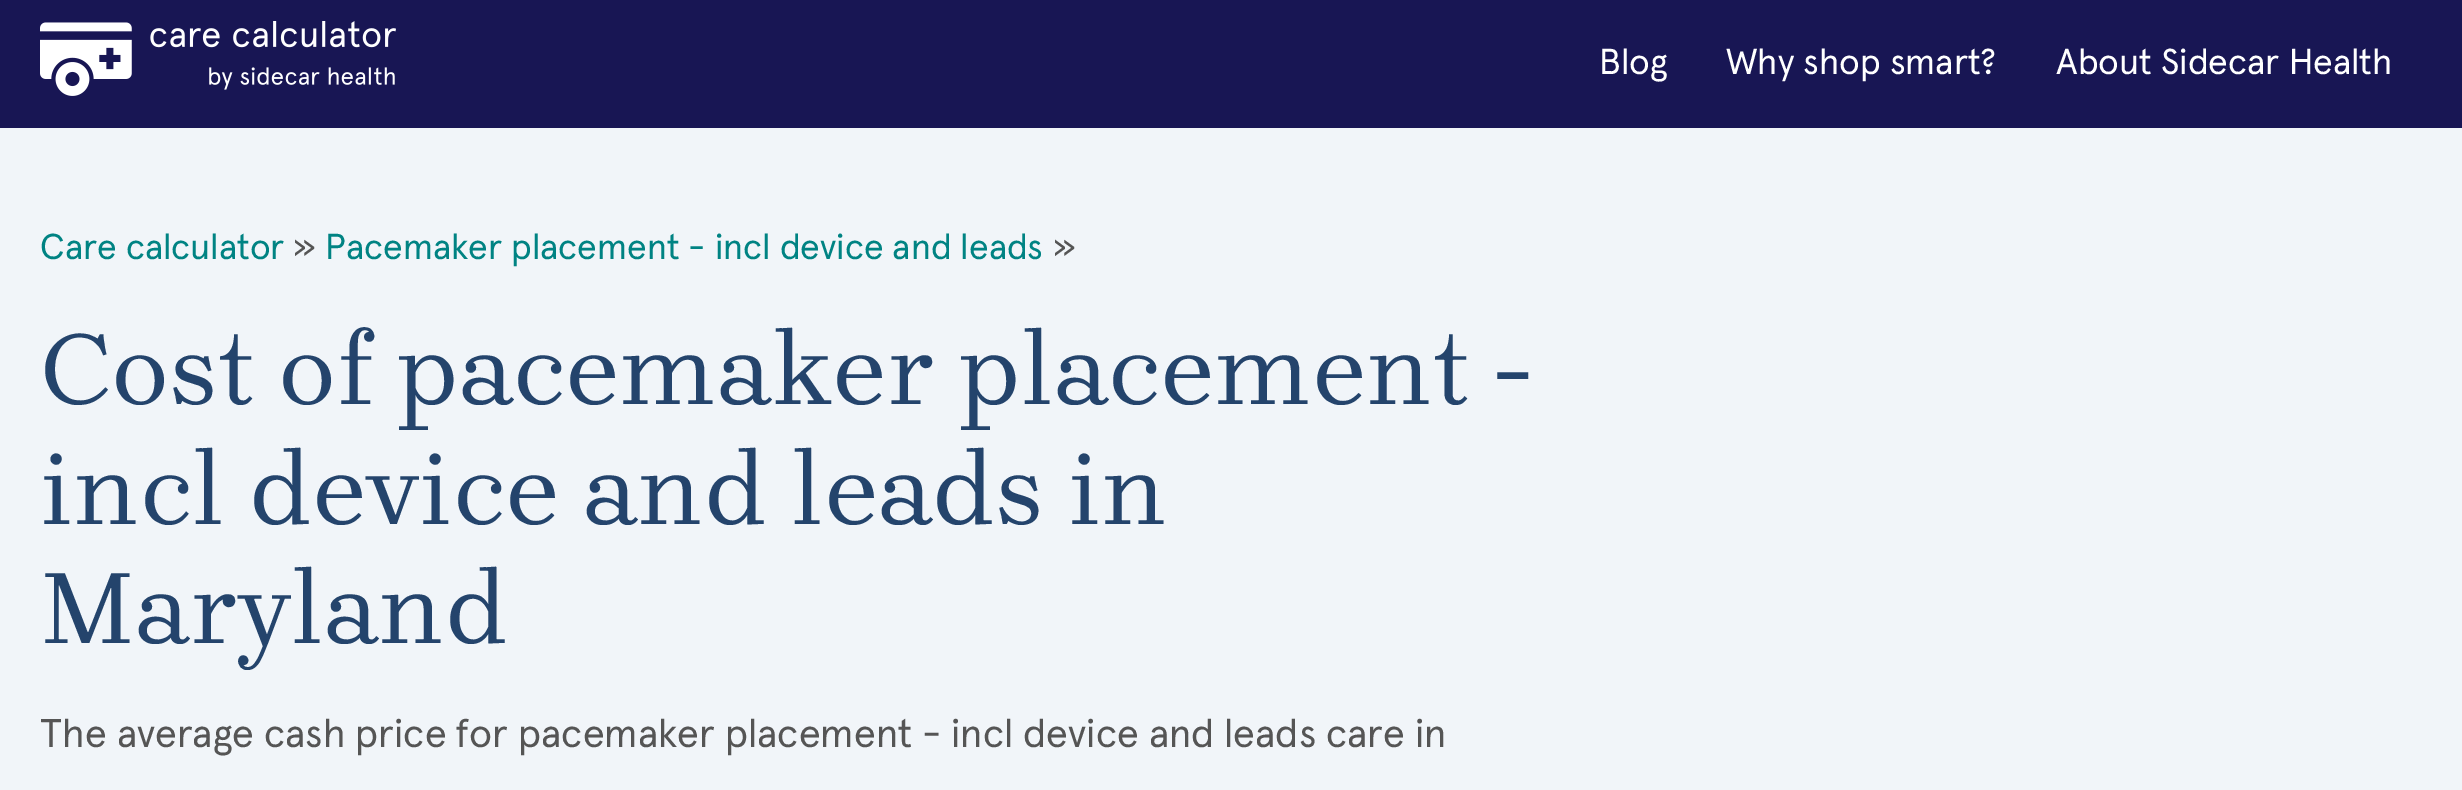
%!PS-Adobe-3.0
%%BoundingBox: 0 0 2462 790
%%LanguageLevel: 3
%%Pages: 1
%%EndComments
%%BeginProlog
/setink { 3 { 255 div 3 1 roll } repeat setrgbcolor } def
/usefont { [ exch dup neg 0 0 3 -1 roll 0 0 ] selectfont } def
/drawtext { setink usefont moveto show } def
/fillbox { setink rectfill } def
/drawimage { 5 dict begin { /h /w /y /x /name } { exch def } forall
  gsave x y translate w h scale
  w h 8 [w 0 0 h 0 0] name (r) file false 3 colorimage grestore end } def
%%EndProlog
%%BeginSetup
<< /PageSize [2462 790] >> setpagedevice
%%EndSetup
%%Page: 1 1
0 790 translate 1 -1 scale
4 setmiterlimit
0 0 2462 790 24 22 84 fillbox
(assets/img1.rgb) 40 21 356 75 drawimage
(Blog) 1599 74 /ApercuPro-Regular 36 255 255 255 drawtext
(Why shop smart?) 1726 74 /ApercuPro-Regular 36 255 255 255 drawtext
(About Sidecar Health) 2056 74 /ApercuPro-Regular 36 255 255 255 drawtext
0 128 2462 662 241 245 249 fillbox
(Care calculator) 40 259 /ApercuPro-Regular 36 0 131 131 drawtext
(») 293 259 /ApercuPro-Regular 36 85 85 85 drawtext
(Pacemaker placement - incl device and leads) 325 259 /ApercuPro-Regular 36 0 131 131 drawtext
(») 1053 259 /ApercuPro-Regular 36 85 85 85 drawtext
(Cost of pacemaker placement -) 40 404 /Brygada1918-Regular 104 36 68 108 drawtext
(incl device and leads in) 40 524 /Brygada1918-Regular 104 36 68 108 drawtext
(Maryland) 40 643 /Brygada1918-Regular 104 36 68 108 drawtext
(The average cash price for pacemaker placement - incl device and leads care in) 40 747 /ApercuPro-Regular 40 85 85 85 drawtext
showpage
%%EOF
